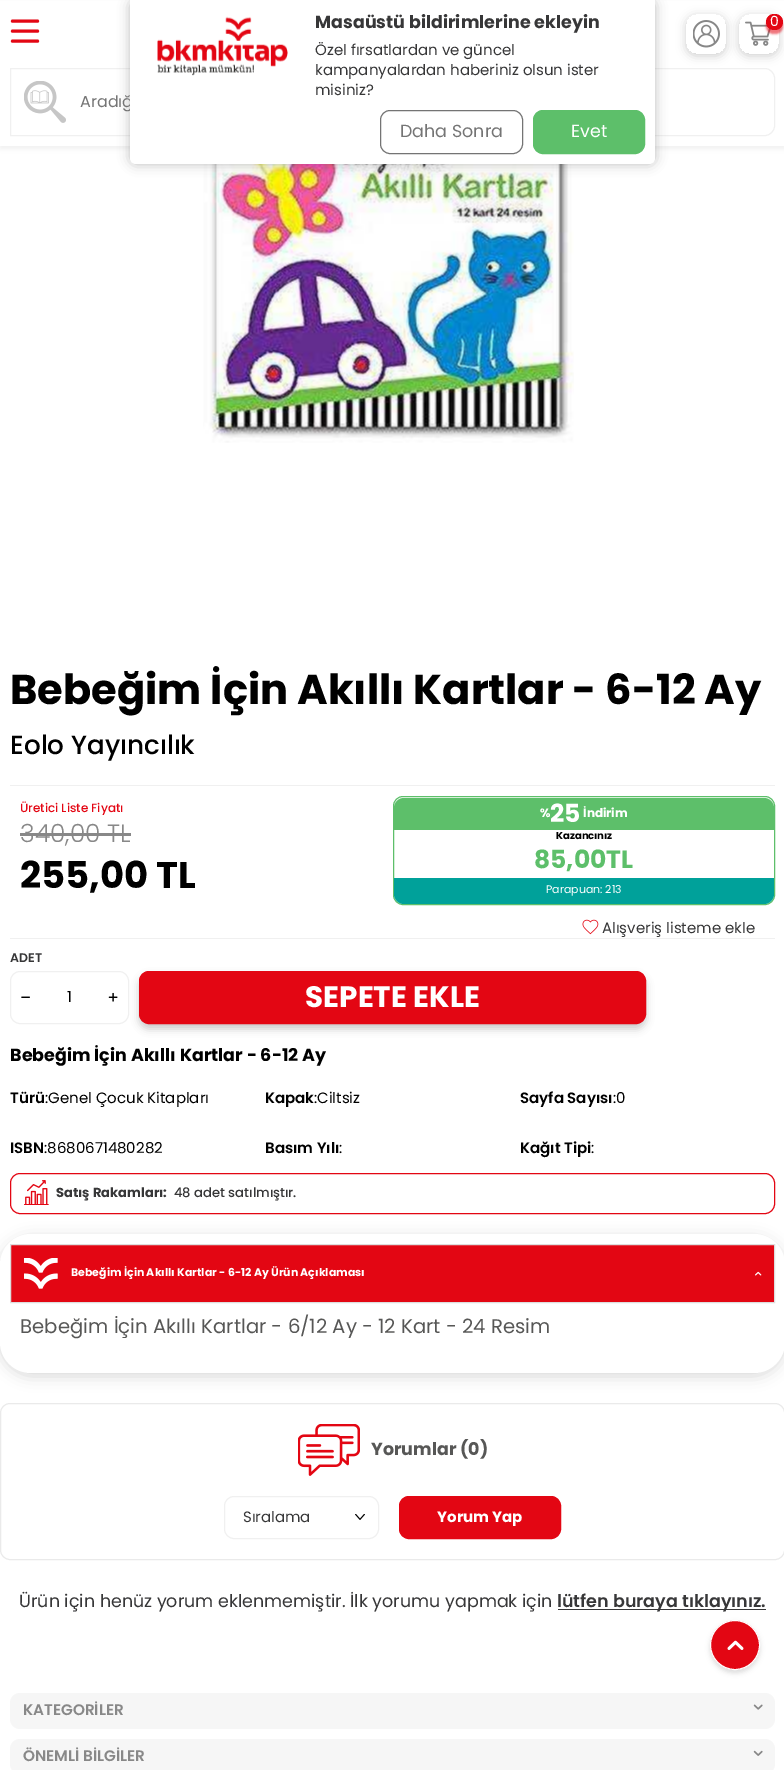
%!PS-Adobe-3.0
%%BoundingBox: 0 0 784 1770
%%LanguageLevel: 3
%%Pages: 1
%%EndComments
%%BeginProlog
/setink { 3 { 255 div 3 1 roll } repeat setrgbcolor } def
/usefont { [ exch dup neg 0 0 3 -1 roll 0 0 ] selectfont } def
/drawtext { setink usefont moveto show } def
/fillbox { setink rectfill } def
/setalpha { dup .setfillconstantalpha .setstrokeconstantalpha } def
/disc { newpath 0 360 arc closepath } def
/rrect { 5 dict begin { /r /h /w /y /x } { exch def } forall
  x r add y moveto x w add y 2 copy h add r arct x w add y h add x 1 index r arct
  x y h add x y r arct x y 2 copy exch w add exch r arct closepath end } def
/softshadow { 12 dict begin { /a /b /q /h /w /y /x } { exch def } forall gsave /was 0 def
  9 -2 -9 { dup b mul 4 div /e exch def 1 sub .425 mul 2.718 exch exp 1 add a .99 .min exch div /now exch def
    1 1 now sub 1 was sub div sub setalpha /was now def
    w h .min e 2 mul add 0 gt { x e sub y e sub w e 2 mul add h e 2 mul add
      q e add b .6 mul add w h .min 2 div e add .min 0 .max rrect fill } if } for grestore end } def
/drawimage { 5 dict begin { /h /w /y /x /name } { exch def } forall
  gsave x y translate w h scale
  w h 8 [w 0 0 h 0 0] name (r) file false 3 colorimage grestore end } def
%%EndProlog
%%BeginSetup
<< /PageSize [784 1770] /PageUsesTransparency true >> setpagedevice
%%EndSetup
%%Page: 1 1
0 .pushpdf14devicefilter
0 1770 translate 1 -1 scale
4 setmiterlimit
0 0 784 1770 255 255 255 fillbox
0 0 0 setink
0 3 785 146 0 2.5 0.06 softshadow
0 1 784 145 255 255 255 fillbox
240 240 240 setink
10.5 68.5 moveto 765 68.5 lineto 770 68.5 774.5 73 774.5 78 curveto 774.5 126 lineto 774.5 131 770 135.5 765 135.5 curveto 10.5 135.5 lineto closepath stroke
(assets/img6.rgb) 203 164 371 279 drawimage
40 40 40 setink
130 0 525 164 6 6 0.3 softshadow
(Aradığ) 80 107 /Poppins-Regular 16 117 117 117 drawtext
255 255 255 setink
130 0 moveto 655 0 lineto 655 158 lineto 655 161.5 652.5 164 649 164 curveto 136 164 lineto 132.5 164 130 161.5 130 158 curveto closepath fill
(assets/img1.rgb) 157 16 131 60 drawimage
(Masaüstü bildirimlerine ekleyin) 315 28 /Poppins-Bold 17.5 55 55 56 drawtext
(Özel fırsatlardan ve güncel) 315 55 /Poppins-Regular 15 55 55 56 drawtext
(kampanyalardan haberiniz olsun ister) 315 75 /Poppins-Regular 15 55 55 56 drawtext
(misiniz?) 315 95 /Poppins-Regular 15 55 55 56 drawtext
116 116 116 setink
380.5 110.5 142 43 9.5 rrect stroke
(Daha Sonra) 400 137 /Poppins-Regular 17.5 117 117 117 drawtext
93 191 106 setink
533.5 110.5 111 43 9.5 rrect gsave fill grestore
stroke
(Evet) 571 137 /Poppins-Regular 17.5 255 255 255 drawtext
227 6 19 setink
3.1 setlinewidth
1 setlinecap
12.5 21 moveto 37.5 21 lineto 12.5 31 moveto 37.5 31 lineto 12.5 41 moveto 37.5 41 lineto stroke
gsave
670 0 moveto 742 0 lineto 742 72 lineto 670 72 lineto closepath 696 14 moveto 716 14 lineto 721.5 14 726 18.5 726 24 curveto 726 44 lineto 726 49.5 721.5 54 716 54 curveto 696 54 lineto 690.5 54 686 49.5 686 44 curveto 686 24 lineto 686 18.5 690.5 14 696 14 curveto closepath eoclip newpath
160 160 160 setink
686 16 40 40 10 5 0.5 softshadow
grestore
(assets/img2.rgb) 693 20 27 28 drawimage
gsave
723 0 moveto 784 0 lineto 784 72 lineto 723 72 lineto closepath 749 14 moveto 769 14 lineto 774.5 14 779 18.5 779 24 curveto 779 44 lineto 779 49.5 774.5 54 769 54 curveto 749 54 lineto 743.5 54 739 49.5 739 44 curveto 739 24 lineto 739 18.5 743.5 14 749 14 curveto closepath eoclip newpath
160 160 160 setink
739 16 40 40 10 5 0.5 softshadow
grestore
(assets/img3.rgb) 745 21 26 25 drawimage
766 18 17 16 8 1 0.56 softshadow
766 14 17 16 8 rrect fill
(0) 770 26 /Poppins-Regular 14 255 255 255 drawtext
(assets/img4.rgb) 24 81 42 42 drawimage
0 0 0 setink
710 1623 50 50 25 2.5 0.13 softshadow
227 6 19 setink
735 1645 24.5 disc gsave fill grestore
255 255 255 setink
1 setlinewidth
0 setlinecap
stroke
(assets/img5.rgb) 727 1640 17 10 drawimage
(Bebeğim İçin Akıllı Kartlar - 6-12 Ay) 10 704 /Poppins-Bold 41.6 0 0 0 drawtext
(Eolo Yayıncılık) 10 754 /Poppins-Medium 26.25 0 0 0 drawtext
10 785 765 1 240 240 240 fillbox
10 938 765 1 240 240 240 fillbox
(Üretici Liste Fiyatı) 20 812 /Poppins-Medium 12 227 6 19 drawtext
(340,00 TL) 20 842 /Poppins-Light 25 136 136 136 drawtext
20 833 111 3 136 136 136 fillbox
(255,00 TL) 20 888 /Poppins-Bold 37 0 0 0 drawtext
93 191 106 setink
393.5 796.5 381 108 9.5 rrect stroke
404 798 moveto 764 798 lineto 769.5 798 774 802.5 774 808 curveto 774 830 lineto 394 830 lineto 394 808 lineto 394 802.5 398.5 798 404 798 curveto closepath fill
(%) 540 817 /Poppins-Bold 12 255 255 255 drawtext
(25) 550 822 /Poppins-Bold 25 255 255 255 drawtext
(İndirim) 583 817 /Poppins-Bold 12 255 255 255 drawtext
(Kazancınız) 556 839 /Poppins-Bold 10 0 0 0 drawtext
(85,00TL) 534 868 /Poppins-Bold 25 93 191 106 drawtext
0 161 154 setink
394 878 moveto 774 878 lineto 774 894 lineto 774 899.5 769.5 904 764 904 curveto 404 904 lineto 398.5 904 394 899.5 394 894 curveto closepath fill
(Parapuan: 213) 546 893 /Poppins-Regular 10.95 255 255 255 drawtext
(assets/img7.rgb) 582 919 17 16 drawimage
(Alışveriş listeme ekle) 602 933 /Poppins-Regular 15 55 55 56 drawtext
(ADET) 10 962 /Poppins-SemiBold 12.5 55 55 56 drawtext
0 0 0 setink
139 976 507 53 10 4 0.2 softshadow
240 240 240 setink
10.5 971.5 118 52 9.5 rrect stroke
(assets/img8.rgb) 21 996 9 2 drawimage
(1) 67 1002 /Poppins-Regular 15.25 0 0 0 drawtext
(assets/img9.rgb) 108 992 10 10 drawimage
227 6 19 setink
139.5 971.5 506 52 9.5 rrect gsave fill grestore
stroke
(SEPETE EKLE) 305 1007 /Poppins-Bold 29.5 255 255 255 drawtext
(Bebeğim İçin Akıllı Kartlar - 6-12 Ay) 10 1061 /Poppins-Bold 17.5 0 0 0 drawtext
(Türü) 10 1103 /Poppins-SemiBold 15 0 0 0 drawtext
(:Genel Çocuk Kitapları) 45 1103 /Poppins-Regular 15 0 0 0 drawtext
(Kapak) 265 1103 /Poppins-SemiBold 15 0 0 0 drawtext
(:Ciltsiz) 314 1103 /Poppins-Regular 15 0 0 0 drawtext
(Sayfa Sayısı) 520 1103 /Poppins-SemiBold 15 0 0 0 drawtext
(:0) 613 1103 /Poppins-Regular 15 0 0 0 drawtext
(ISBN) 10 1153 /Poppins-SemiBold 15 0 0 0 drawtext
(:8680671480282) 44 1153 /Poppins-Regular 15 0 0 0 drawtext
(Basım Yılı) 265 1153 /Poppins-SemiBold 15 0 0 0 drawtext
(:) 339 1153 /Poppins-Regular 15 0 0 0 drawtext
(Kağıt Tipi) 520 1153 /Poppins-SemiBold 15 0 0 0 drawtext
(:) 591 1153 /Poppins-Regular 15 0 0 0 drawtext
227 6 19 setink
10.5 1173.5 764 40 9.5 rrect stroke
(assets/img10.rgb) 24 1180 25 25 drawimage
(Satış Rakamları:) 56 1197 /Poppins-Bold 13.1 55 55 56 drawtext
(48 adet satılmıştır.) 174 1197 /Poppins-Medium 13.1 55 55 56 drawtext
0 0 0 setink
0 1238 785 138 31 7.5 0.15 softshadow
255 255 255 setink
0 1234 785 139 31 rrect fill
227 6 19 setink
10.5 1244.5 moveto 774.5 1244.5 lineto 774.5 1302.5 lineto 10.5 1302.5 lineto closepath gsave fill grestore
221 221 221 setink
stroke
(assets/img11.rgb) 24 1258 34 31 drawimage
(Bebeğim İçin Akıllı Kartlar - 6-12 Ay Ürün Açıklaması) 71 1276 /Poppins-Bold 10.95 255 255 255 drawtext
(assets/img12.rgb) 755 1271 7 5 drawimage
(Bebeğim İçin Akıllı Kartlar - 6/12 Ay - 12 Kart - 24 Resim) 20 1333 /Poppins-Regular 19.7 87 87 86 drawtext
234 234 234 setink
0.5 1403.5 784 156 9.5 rrect stroke
(assets/img13.rgb) 298 1424 62 52 drawimage
(Yorumlar \(0\)) 371 1455 /Poppins-Bold 17.5 87 87 86 drawtext
(assets/img14.rgb) 355 1514 10 6 drawimage
240 240 240 setink
224.5 1496.5 154 42 9.5 rrect stroke
(Sıralama) 243 1522 /Poppins-Regular 15 55 55 56 drawtext
227 6 19 setink
399.5 1496.5 161 42 9.5 rrect gsave fill grestore
stroke
(Yorum Yap) 437 1522 /Poppins-Bold 15 255 255 255 drawtext
(Ürün için henüz yorum eklenmemiştir. İlk yorumu yapmak için) 19 1607 /Poppins-Regular 17.5 55 55 56 drawtext
558 1609 208 1 55 55 56 fillbox
(lütfen buraya tıklayınız.) 557 1607 /Poppins-SemiBold 17.5 55 55 56 drawtext
246 246 246 setink
10 1693 765 36 10 rrect fill
(KATEGORİLER) 23 1715 /Poppins-SemiBold 15.25 136 136 136 drawtext
(assets/img15.rgb) 753 1704 10 6 drawimage
246 246 246 setink
10 1739 765 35 10 rrect fill
(ÖNEMLİ BİLGİLER) 23 1761 /Poppins-SemiBold 15.25 136 136 136 drawtext
(assets/img16.rgb) 753 1750 10 6 drawimage
.poppdf14devicefilter showpage
%%EOF
